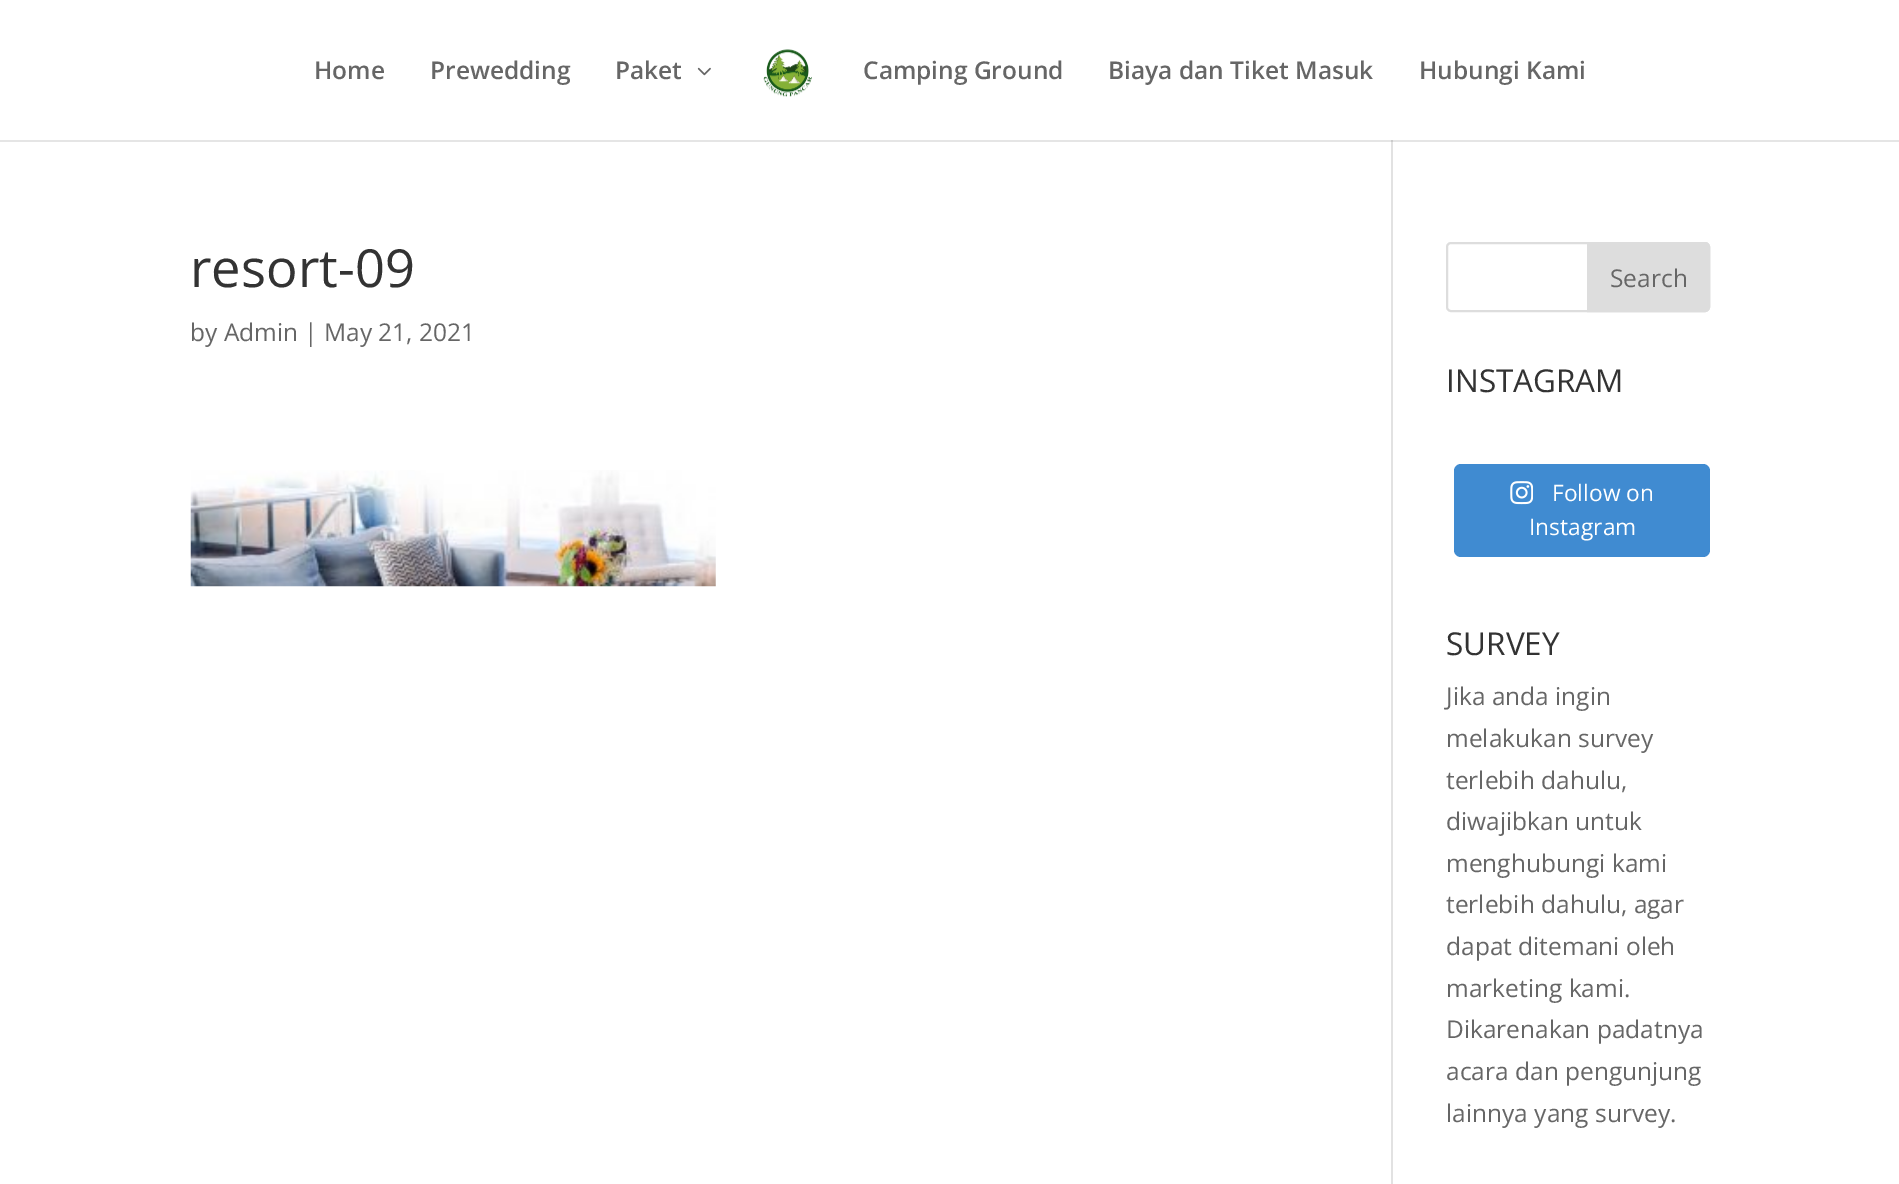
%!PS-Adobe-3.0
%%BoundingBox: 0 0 1899 1184
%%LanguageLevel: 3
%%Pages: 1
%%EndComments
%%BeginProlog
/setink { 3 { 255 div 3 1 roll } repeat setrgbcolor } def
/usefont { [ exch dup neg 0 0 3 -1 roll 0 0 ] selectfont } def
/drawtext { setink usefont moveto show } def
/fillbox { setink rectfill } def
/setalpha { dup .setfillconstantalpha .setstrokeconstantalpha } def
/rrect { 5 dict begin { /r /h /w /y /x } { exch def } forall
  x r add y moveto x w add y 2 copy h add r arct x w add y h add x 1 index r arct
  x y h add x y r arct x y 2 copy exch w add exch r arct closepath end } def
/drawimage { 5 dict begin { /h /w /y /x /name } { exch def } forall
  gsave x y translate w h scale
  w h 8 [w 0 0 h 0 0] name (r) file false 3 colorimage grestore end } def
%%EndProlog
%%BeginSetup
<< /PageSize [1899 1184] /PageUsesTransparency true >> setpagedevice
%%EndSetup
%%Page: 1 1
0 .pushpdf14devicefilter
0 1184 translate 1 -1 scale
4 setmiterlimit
0 0 1899 1184 255 255 255 fillbox
1391 140 2 1044 226 226 226 fillbox
0.1 setalpha
0 0 0 setink
0 140 moveto 0 142 lineto 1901 142 lineto 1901 2 lineto 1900 2 lineto 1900 140 lineto closepath fill
1 setalpha
(Home) 314 79 /OpenSans-SemiBold 24.5 102 102 102 drawtext
(Prewedding) 430 79 /OpenSans-SemiBold 24.5 102 102 102 drawtext
(Paket) 615 79 /OpenSans-SemiBold 24.5 102 102 102 drawtext
(assets/img1.rgb) 697 67 14 9 drawimage
(assets/img2.rgb) 763 49 49 48 drawimage
(Camping Ground) 863 79 /OpenSans-SemiBold 24.5 102 102 102 drawtext
(Biaya dan Tiket Masuk) 1108 79 /OpenSans-SemiBold 24.5 102 102 102 drawtext
(Hubungi Kami) 1419 79 /OpenSans-SemiBold 24.5 102 102 102 drawtext
(resort-09) 190 287 /OpenSans-Regular 52.5 51 51 51 drawtext
(by Admin | May 21, 2021) 190 341 /OpenSans-Regular 24.5 102 102 102 drawtext
(assets/img3.rgb) 190 470 526 117 drawimage
221 221 221 setink
2 setlinewidth
1447 243 262 68 4 rrect stroke
1588 243 moveto 1705 243 lineto 1707 243 1709 245 1709 247 curveto 1709 307 lineto 1709 309 1707 311 1705 311 curveto 1588 311 lineto closepath gsave fill grestore
stroke
(Search) 1610 287 /OpenSans-Regular 24.5 102 102 102 drawtext
(INSTAGRAM) 1446 392 /OpenSans-Regular 31.5 51 51 51 drawtext
64 139 209 setink
1454 464 256 93 7 rrect fill
(assets/img4.rgb) 1510 481 23 24 drawimage
(Follow on) 1552 501 /OpenSans-Regular 22.75 255 255 255 drawtext
(Instagram) 1529 535 /OpenSans-Regular 22.75 255 255 255 drawtext
(SURVEY) 1446 655 /OpenSans-Regular 31.5 51 51 51 drawtext
(Jika anda ingin) 1446 705 /OpenSans-Regular 24.5 102 102 102 drawtext
(melakukan survey) 1446 747 /OpenSans-Regular 24.5 102 102 102 drawtext
(terlebih dahulu,) 1446 789 /OpenSans-Regular 24.5 102 102 102 drawtext
(diwajibkan untuk) 1446 830 /OpenSans-Regular 24.5 102 102 102 drawtext
(menghubungi kami) 1446 872 /OpenSans-Regular 24.5 102 102 102 drawtext
(terlebih dahulu, agar) 1446 913 /OpenSans-Regular 24.5 102 102 102 drawtext
(dapat ditemani oleh) 1446 955 /OpenSans-Regular 24.5 102 102 102 drawtext
(marketing kami.) 1446 997 /OpenSans-Regular 24.5 102 102 102 drawtext
(Dikarenakan padatnya) 1446 1038 /OpenSans-Regular 24.5 102 102 102 drawtext
(acara dan pengunjung) 1446 1080 /OpenSans-Regular 24.5 102 102 102 drawtext
(lainnya yang survey.) 1446 1122 /OpenSans-Regular 24.5 102 102 102 drawtext
.poppdf14devicefilter showpage
%%EOF
